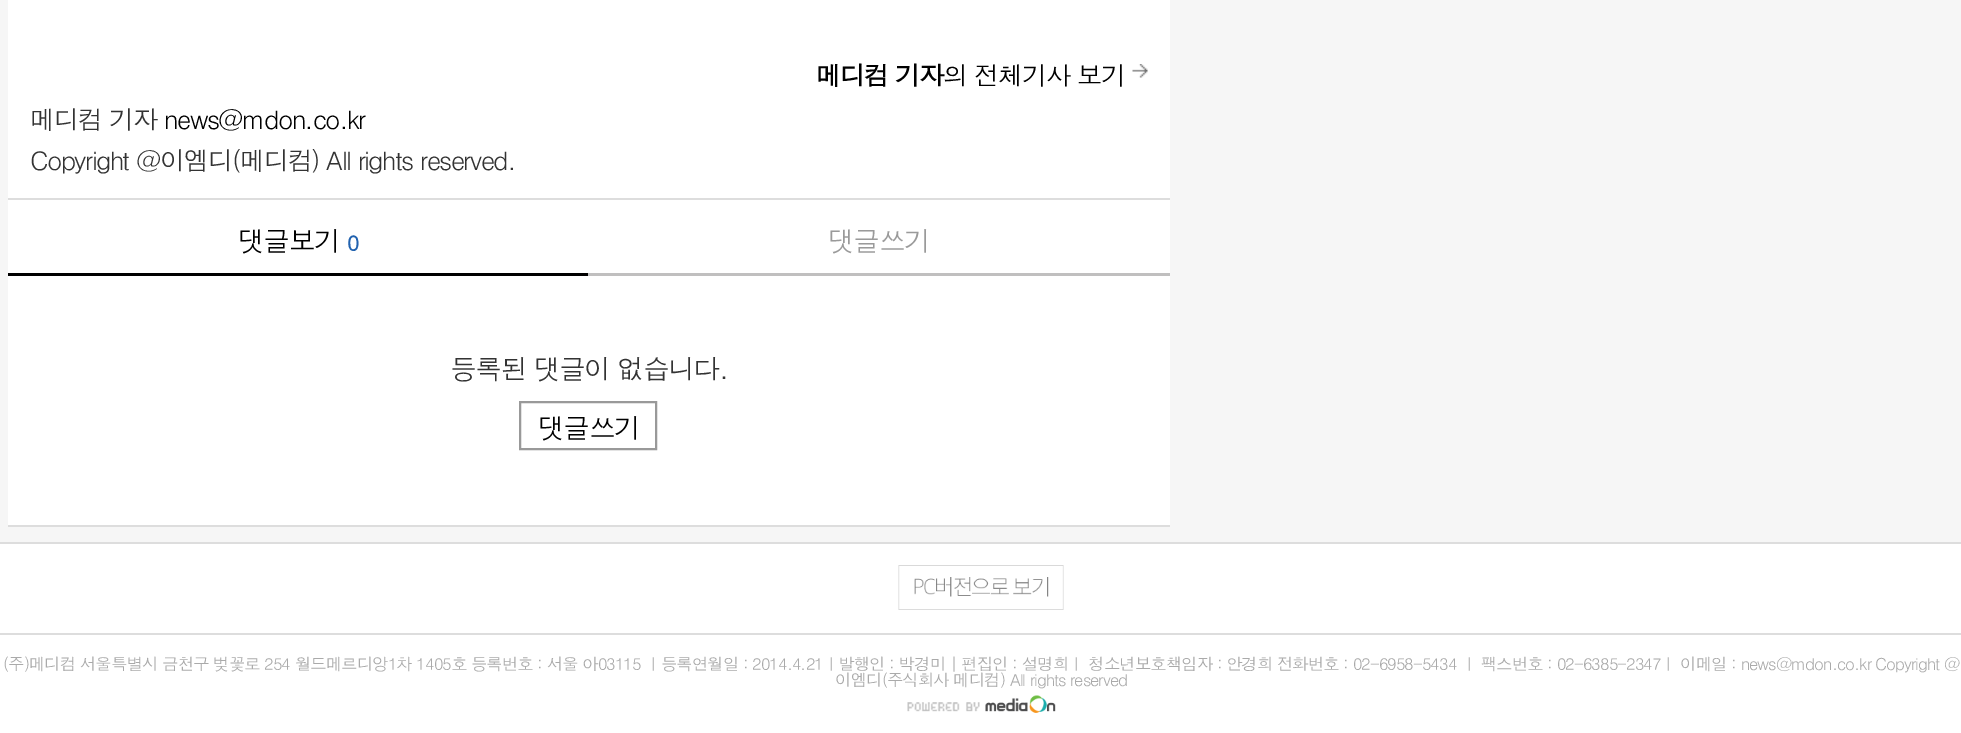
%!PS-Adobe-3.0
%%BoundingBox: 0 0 1961 733
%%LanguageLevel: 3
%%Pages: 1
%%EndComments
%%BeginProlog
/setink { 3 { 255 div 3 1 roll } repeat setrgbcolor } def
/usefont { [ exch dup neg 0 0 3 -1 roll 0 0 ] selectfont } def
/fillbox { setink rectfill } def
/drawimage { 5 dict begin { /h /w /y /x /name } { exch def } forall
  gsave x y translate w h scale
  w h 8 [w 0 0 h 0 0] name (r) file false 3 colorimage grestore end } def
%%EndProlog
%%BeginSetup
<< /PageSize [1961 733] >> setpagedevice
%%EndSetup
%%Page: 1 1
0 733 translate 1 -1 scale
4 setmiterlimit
0 0 1961 733 246 246 246 fillbox
8 0 1162 198 255 255 255 fillbox
/Dotum-Bold 25.5 usefont
0 0 0 setink
816 85 moveto -1.55 0 (메디컴 기자) ashow
/Dotum-Regular 25.5 usefont
943 85 moveto -1.55 0 (의 전체기사 보기) ashow
(assets/img1.rgb) 1132 64 16 14 drawimage
51 51 51 setink
30 129 moveto -1.55 0 (메디컴 기자) ashow
0 0 0 setink
164 129 moveto -1.55 0 (news@mdon.co.kr) ashow
51 51 51 setink
30 170 moveto -1.55 0 (Copyright @이엠디\(메디컴\) All rights reserved.) ashow
8 525 1162 2 221 221 221 fillbox
8 200 1162 73 255 255 255 fillbox
8 198 1162 2 221 221 221 fillbox
8 273 580 3 0 0 0 fillbox
/Dotum-Regular 27 usefont
238 251 moveto -1.6 0 (댓글보기) ashow
/Dotum-Bold 21 usefont
33 98 175 setink
347 251 moveto -1 0 (0) ashow
588 273 582 3 192 191 191 fillbox
/Dotum-Regular 27 usefont
154 154 154 setink
828 251 moveto -1.6 0 (댓글쓰기) ashow
8 276 1162 249 255 255 255 fillbox
51 51 51 setink
450 379 moveto -1.6 0 (등록된 댓글이 없습니다.) ashow
153 153 153 setink
2 setlinewidth
520 402 136 47 rectstroke
0 0 0 setink
538 438 moveto -1.6 0 (댓글쓰기) ashow
0 544 1961 189 255 255 255 fillbox
0 542 1961 2 221 221 221 fillbox
0 633 1961 2 221 221 221 fillbox
(assets/img2.rgb) 898 565 166 45 drawimage
/Dotum-Regular 16.5 usefont
170 170 170 setink
3 670 moveto -0.99 0 (\(주\)메디컴 서울특별시 금천구 벚꽃로 254 월드메르디앙1차 1405호 등록번호 : 서울 아03115 ㅣ등록연월일 : 2014.4.21ㅣ발행인 : 박경미 | 편집인 : 설명희ㅣ 청소년보호책임자 : 안경희 전화번호 : 02-6958-5434 ㅣ 팩스번호 : 02-6385-2347ㅣ 이메일 : news@mdon.co.kr Copyright @) ashow
835 686 moveto -0.99 0 (이엠디\(주식회사 메디컴\) All rights reserved) ashow
(assets/img3.rgb) 907 695 149 18 drawimage
showpage
%%EOF
